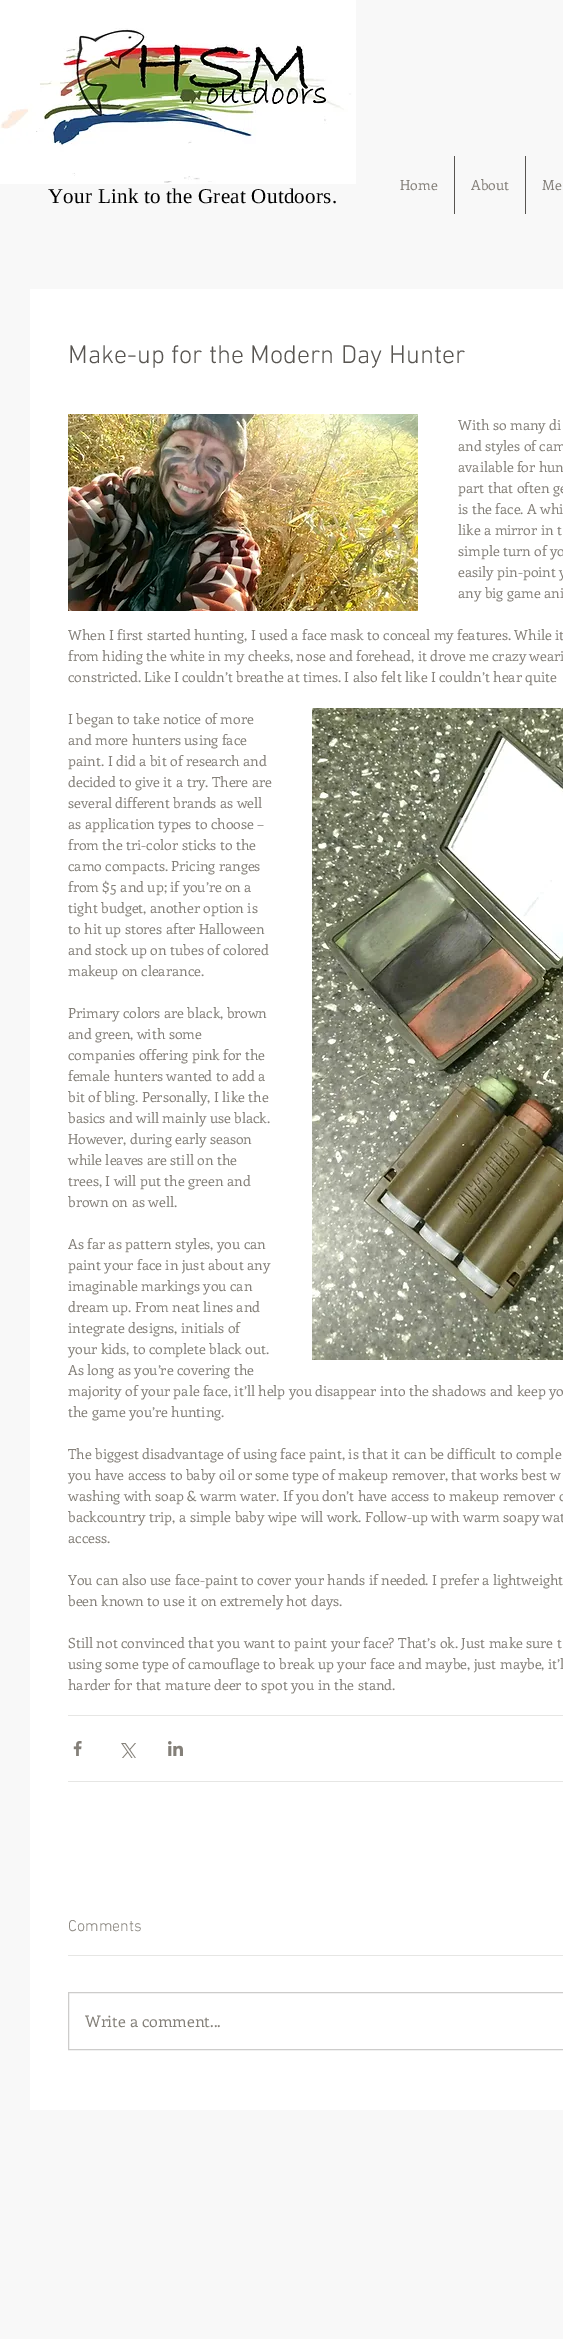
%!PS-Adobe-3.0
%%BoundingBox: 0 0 563 2339
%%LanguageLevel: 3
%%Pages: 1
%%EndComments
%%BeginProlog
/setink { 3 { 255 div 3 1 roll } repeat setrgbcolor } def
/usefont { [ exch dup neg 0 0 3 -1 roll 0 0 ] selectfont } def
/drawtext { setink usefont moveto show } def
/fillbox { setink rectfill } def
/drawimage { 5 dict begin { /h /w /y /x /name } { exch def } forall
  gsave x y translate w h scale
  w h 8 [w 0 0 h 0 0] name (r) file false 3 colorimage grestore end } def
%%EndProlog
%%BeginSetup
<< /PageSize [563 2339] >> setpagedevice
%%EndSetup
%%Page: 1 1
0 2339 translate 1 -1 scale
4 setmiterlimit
0 0 563 2339 248 248 248 fillbox
(assets/img1.rgb) 0 0 356 184 drawimage
(Home) 400 190 /Enriqueta-Regular 14 132 128 121 drawtext
454 156 1 58 88 85 81 fillbox
(About) 471 190 /Enriqueta-Regular 14 132 128 121 drawtext
525 156 1 58 88 85 81 fillbox
(Me) 542 190 /Enriqueta-Regular 14 132 128 121 drawtext
/LiberationSerif-Regular 21 usefont
0 0 0 setink
48 203 moveto 0.25 0 (Your Link to the Great Outdoors.) ashow
30 289 533 1821 255 255 255 fillbox
(Make-up for the Modern Day Hunter) 68 363 /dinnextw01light-Light 26 88 85 81 drawtext
(assets/img2.rgb) 68 414 350 197 drawimage
(With so many di) 458 430 /Enriqueta-Regular 14 132 128 121 drawtext
(and styles of cam) 458 451 /Enriqueta-Regular 14 132 128 121 drawtext
(available for hun) 458 472 /Enriqueta-Regular 14 132 128 121 drawtext
(part that often ge) 458 493 /Enriqueta-Regular 14 132 128 121 drawtext
(is the face. A whi) 458 514 /Enriqueta-Regular 14 132 128 121 drawtext
(like a mirror in t) 458 535 /Enriqueta-Regular 14 132 128 121 drawtext
(simple turn of yo) 458 556 /Enriqueta-Regular 14 132 128 121 drawtext
(easily pin-point y) 458 577 /Enriqueta-Regular 14 132 128 121 drawtext
(any big game ani) 458 598 /Enriqueta-Regular 14 132 128 121 drawtext
(When I first started hunting, I used a face mask to conceal my features. While it) 68 640 /Enriqueta-Regular 14 132 128 121 drawtext
(from hiding the white in my cheeks, nose and forehead, it drove me crazy weari) 68 661 /Enriqueta-Regular 14 132 128 121 drawtext
(constricted. Like I couldn’t breathe at times. I also felt like I couldn’t hear quite) 68 682 /Enriqueta-Regular 14 132 128 121 drawtext
(I began to take notice of more) 68 724 /Enriqueta-Regular 14 132 128 121 drawtext
(and more hunters using face) 68 745 /Enriqueta-Regular 14 132 128 121 drawtext
(paint. I did a bit of research and) 68 766 /Enriqueta-Regular 14 132 128 121 drawtext
(decided to give it a try. There are) 68 787 /Enriqueta-Regular 14 132 128 121 drawtext
(several different brands as well) 68 808 /Enriqueta-Regular 14 132 128 121 drawtext
(as application types to choose –) 68 829 /Enriqueta-Regular 14 132 128 121 drawtext
(from the tri-color sticks to the) 68 850 /Enriqueta-Regular 14 132 128 121 drawtext
(camo compacts. Pricing ranges) 68 871 /Enriqueta-Regular 14 132 128 121 drawtext
(from $5 and up; if you’re on a) 68 892 /Enriqueta-Regular 14 132 128 121 drawtext
(tight budget, another option is) 68 913 /Enriqueta-Regular 14 132 128 121 drawtext
(to hit up stores after Halloween) 68 934 /Enriqueta-Regular 14 132 128 121 drawtext
(and stock up on tubes of colored) 68 955 /Enriqueta-Regular 14 132 128 121 drawtext
(makeup on clearance.) 68 976 /Enriqueta-Regular 14 132 128 121 drawtext
(assets/img3.rgb) 312 708 251 652 drawimage
(Primary colors are black, brown) 68 1018 /Enriqueta-Regular 14 132 128 121 drawtext
(and green, with some) 68 1039 /Enriqueta-Regular 14 132 128 121 drawtext
(companies offering pink for the) 68 1060 /Enriqueta-Regular 14 132 128 121 drawtext
(female hunters wanted to add a) 68 1081 /Enriqueta-Regular 14 132 128 121 drawtext
(bit of bling. Personally, I like the) 68 1102 /Enriqueta-Regular 14 132 128 121 drawtext
(basics and will mainly use black.) 68 1123 /Enriqueta-Regular 14 132 128 121 drawtext
(However, during early season) 68 1144 /Enriqueta-Regular 14 132 128 121 drawtext
(while leaves are still on the) 68 1165 /Enriqueta-Regular 14 132 128 121 drawtext
(trees, I will put the green and) 68 1186 /Enriqueta-Regular 14 132 128 121 drawtext
(brown on as well.) 68 1207 /Enriqueta-Regular 14 132 128 121 drawtext
(As far as pattern styles, you can) 68 1249 /Enriqueta-Regular 14 132 128 121 drawtext
(paint your face in just about any) 68 1270 /Enriqueta-Regular 14 132 128 121 drawtext
(imaginable markings you can) 68 1291 /Enriqueta-Regular 14 132 128 121 drawtext
(dream up. From neat lines and) 68 1312 /Enriqueta-Regular 14 132 128 121 drawtext
(integrate designs, initials of) 68 1333 /Enriqueta-Regular 14 132 128 121 drawtext
(your kids, to complete black out.) 68 1354 /Enriqueta-Regular 14 132 128 121 drawtext
(As long as you’re covering the) 68 1375 /Enriqueta-Regular 14 132 128 121 drawtext
(majority of your pale face, it’ll help you disappear into the shadows and keep yo) 68 1396 /Enriqueta-Regular 14 132 128 121 drawtext
(the game you’re hunting.) 68 1417 /Enriqueta-Regular 14 132 128 121 drawtext
(The biggest disadvantage of using face paint, is that it can be difficult to comple) 68 1459 /Enriqueta-Regular 14 132 128 121 drawtext
(you have access to baby oil or some type of makeup remover, that works best w) 68 1480 /Enriqueta-Regular 14 132 128 121 drawtext
(washing with soap & warm water. If you don’t have access to makeup remover o) 68 1501 /Enriqueta-Regular 14 132 128 121 drawtext
(backcountry trip, a simple baby wipe will work. Follow-up with warm soapy wat) 68 1522 /Enriqueta-Regular 14 132 128 121 drawtext
(access.) 68 1543 /Enriqueta-Regular 14 132 128 121 drawtext
(You can also use face-paint to cover your hands if needed. I prefer a lightweight) 68 1585 /Enriqueta-Regular 14 132 128 121 drawtext
(been known to use it on extremely hot days.) 68 1606 /Enriqueta-Regular 14 132 128 121 drawtext
(Still not convinced that you want to paint your face? That’s ok. Just make sure t) 68 1648 /Enriqueta-Regular 14 132 128 121 drawtext
(using some type of camouflage to break up your face and maybe, just maybe, it’l) 68 1669 /Enriqueta-Regular 14 132 128 121 drawtext
(harder for that mature deer to spot you in the stand.) 68 1690 /Enriqueta-Regular 14 132 128 121 drawtext
68 1715 495 1 230 230 228 fillbox
(assets/img4.rgb) 73 1741 9 15 drawimage
(assets/img5.rgb) 121 1743 15 15 drawimage
(assets/img6.rgb) 168 1741 15 15 drawimage
68 1781 495 1 230 230 228 fillbox
(Comments) 68 1931 /dinnextw01light-Light 16 132 128 121 drawtext
68 1955 495 1 230 230 228 fillbox
205 204 203 setink
68.5 1992.5 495 57 rectstroke
(Write a comment...) 85 2027 /Enriqueta-Regular 16 132 128 121 drawtext
showpage
%%EOF
